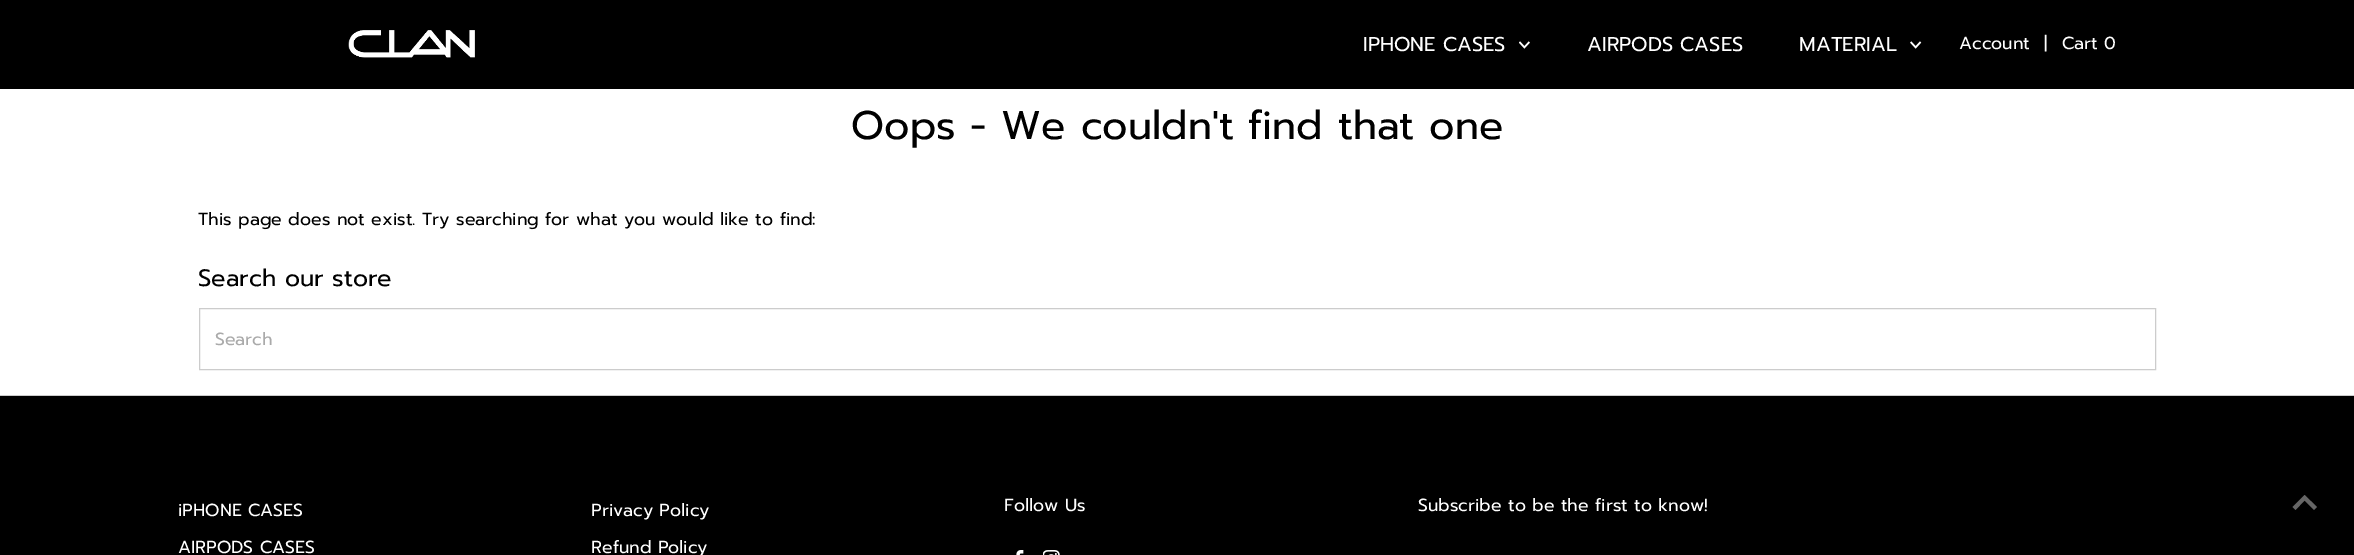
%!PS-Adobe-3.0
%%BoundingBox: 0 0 2354 555
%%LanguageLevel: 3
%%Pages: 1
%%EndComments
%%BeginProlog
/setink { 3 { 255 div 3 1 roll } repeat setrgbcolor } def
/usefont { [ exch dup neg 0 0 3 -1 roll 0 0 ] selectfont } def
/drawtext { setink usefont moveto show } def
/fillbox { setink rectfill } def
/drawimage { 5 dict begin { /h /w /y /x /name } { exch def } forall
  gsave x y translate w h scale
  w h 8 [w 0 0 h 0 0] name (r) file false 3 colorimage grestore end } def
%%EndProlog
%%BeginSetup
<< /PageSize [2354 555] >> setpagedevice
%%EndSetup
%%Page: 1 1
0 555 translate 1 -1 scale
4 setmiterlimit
0 0 2354 555 255 255 255 fillbox
0 0 2354 89 0 0 0 fillbox
(assets/img1.rgb) 348 30 127 28 drawimage
(IPHONE CASES) 1363 51 /Prompt-Regular 20 255 255 255 drawtext
(assets/img2.rgb) 1519 41 11 8 drawimage
(AIRPODS CASES) 1587 51 /Prompt-Regular 20 255 255 255 drawtext
(MATERIAL) 1799 51 /Prompt-Regular 20 255 255 255 drawtext
(assets/img3.rgb) 1910 41 12 8 drawimage
(Account) 1959 49 /Prompt-Regular 17.5 255 255 255 drawtext
(|) 2044 49 /Prompt-Regular 17.5 255 255 255 drawtext
(Cart 0) 2062 49 /Prompt-Regular 17.5 255 255 255 drawtext
(Oops - We couldn't find that one) 851 139 /Prompt-Regular 40 0 0 0 drawtext
(This page does not exist. Try searching for what you would like to find:) 198 225 /Prompt-Regular 17.5 0 0 0 drawtext
(Search our store) 198 286 /Prompt-Regular 23.75 0 0 0 drawtext
204 204 204 setink
199.5 308.5 1956 61 rectstroke
(Search) 215 345 /Prompt-Regular 17.5 170 170 170 drawtext
0 396 2354 159 0 0 0 fillbox
0 395 2354 1 204 204 204 fillbox
(iPHONE CASES) 178 516 /Prompt-Regular 17.5 255 255 255 drawtext
(AIRPODS CASES) 178 553 /Prompt-Regular 17.5 255 255 255 drawtext
(Privacy Policy) 591 516 /Prompt-Regular 17.5 255 255 255 drawtext
(Refund Policy) 591 553 /Prompt-Regular 17.5 255 255 255 drawtext
(Follow Us) 1004 511 /Prompt-Regular 17.5 255 255 255 drawtext
(assets/img4.rgb) 1016 550 8 5 drawimage
(assets/img5.rgb) 1043 550 17 5 drawimage
(Subscribe to be the first to know!) 1418 511 /Prompt-Regular 17.5 255 255 255 drawtext
102 102 102 setink
2304.5 495 moveto 2292.5 507 lineto 2295.5 510 lineto 2304.5 500.5 lineto 2314 510 lineto 2317 507 lineto closepath fill
showpage
%%EOF
